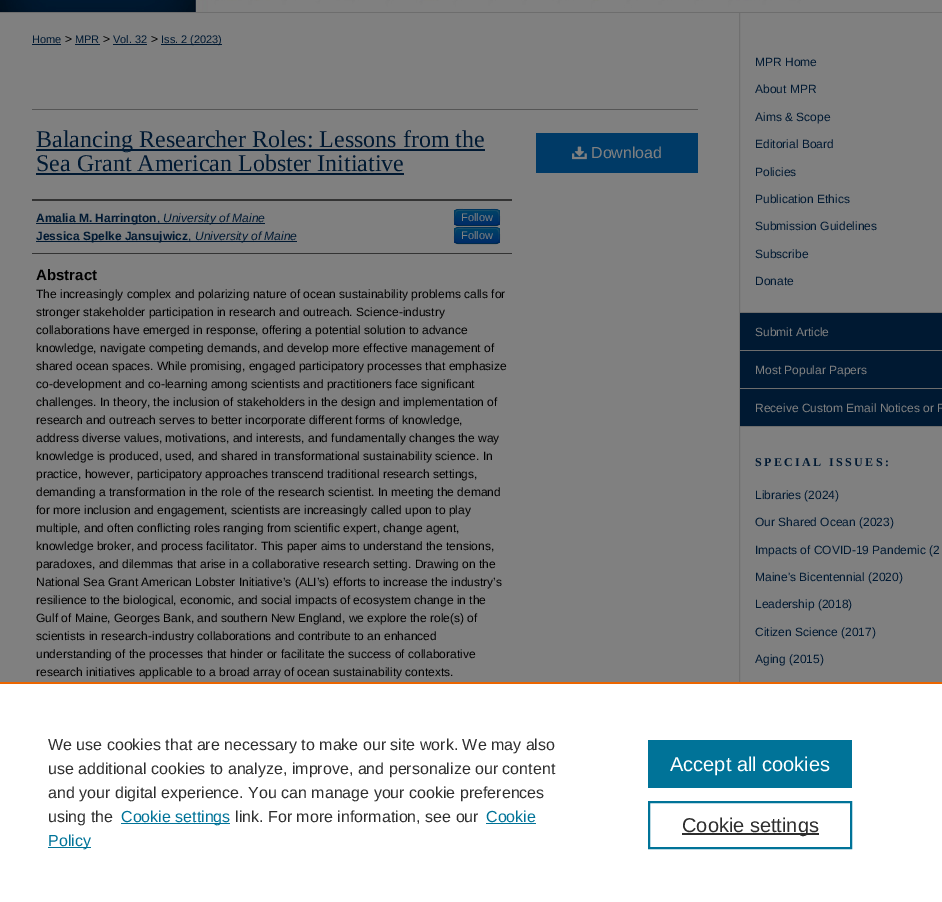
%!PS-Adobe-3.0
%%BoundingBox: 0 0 942 902
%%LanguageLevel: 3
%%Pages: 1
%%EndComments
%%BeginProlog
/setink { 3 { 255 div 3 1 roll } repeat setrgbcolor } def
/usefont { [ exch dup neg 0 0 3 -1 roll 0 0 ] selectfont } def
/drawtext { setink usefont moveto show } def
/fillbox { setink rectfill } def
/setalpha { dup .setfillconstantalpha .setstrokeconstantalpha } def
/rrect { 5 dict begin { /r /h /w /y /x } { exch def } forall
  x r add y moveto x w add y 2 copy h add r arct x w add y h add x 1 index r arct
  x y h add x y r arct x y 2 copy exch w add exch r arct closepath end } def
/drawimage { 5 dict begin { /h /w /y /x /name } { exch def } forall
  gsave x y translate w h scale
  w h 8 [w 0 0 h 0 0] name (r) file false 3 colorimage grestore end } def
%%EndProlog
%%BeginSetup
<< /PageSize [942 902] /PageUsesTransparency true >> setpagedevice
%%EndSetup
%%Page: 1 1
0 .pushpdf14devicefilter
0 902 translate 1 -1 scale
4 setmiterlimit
0 0 942 902 128 128 128 fillbox
0 12 942 1 109 109 109 fillbox
(assets/img1.rgb) 0 0 801 12 drawimage
(assets/img2.rgb) 730 13 212 669 drawimage
(Home) 32 43 /LiberationSans-Regular 11 0 25 50 drawtext
32 44 29 1 0 25 50 fillbox
(>) 65 43 /LiberationSans-Regular 12 0 0 0 drawtext
(MPR) 75 43 /LiberationSans-Regular 11 0 25 50 drawtext
75 44 25 1 0 25 50 fillbox
(>) 103 43 /LiberationSans-Regular 12 0 0 0 drawtext
(Vol. 32) 113 43 /LiberationSans-Regular 11 0 25 50 drawtext
113 44 34 1 0 25 50 fillbox
(>) 151 43 /LiberationSans-Regular 12 0 0 0 drawtext
161 44 61 1 0 25 50 fillbox
(Iss. 2 \(2023\)) 161 43 /LiberationSans-Regular 11 0 25 50 drawtext
32 109 666 1 85 85 85 fillbox
36 149 449 2 0 25 50 fillbox
(Balancing Researcher Roles: Lessons from the) 36 147 /LiberationSerif-Regular 24 0 25 50 drawtext
(Sea Grant American Lobster Initiative) 36 171 /LiberationSerif-Regular 24 0 25 50 drawtext
36 173 368 2 0 25 50 fillbox
32 199 480 2 51 51 51 fillbox
32 253 480 1 51 51 51 fillbox
36 223 229 1 0 25 50 fillbox
(Amalia M. Harrington) 36 222 /LiberationSans-Bold 12 0 25 50 drawtext
(,) 157 222 /LiberationSans-Regular 12 0 25 50 drawtext
(University of Maine) 163 222 /LiberationSans-Italic 12 0 25 50 drawtext
0 58 102 setink
454 209 46 17 4 rrect fill
gsave
454 209 46 17 4 rrect clip newpath
gsave 454 210 moveto 500 210 lineto 500 225 lineto 454 225 lineto closepath clip newpath
<< /ShadingType 2 /ColorSpace /DeviceRGB /Coords [477 210 477 225] /Extend [true true] /Function << /FunctionType 2 /Domain [0 1] /C0 [0 0.267 0.4] /C1 [0 0.169 0.4] /N 1 >> >> shfill grestore
grestore
0.2 setalpha
128 128 128 setink
458 211 moveto 483 211 lineto 497 211 499 207 499 222 curveto 499 211 502 210 490 210 curveto 464 210 lineto 457 210 455 209 455 216 curveto 455 223 lineto 455 220 454 211 458 211 curveto closepath fill
0.25 setalpha
0 0 0 setink
498.5 224.5 moveto 498 225 497 225.5 496 225.5 curveto 458 225.5 lineto 457 225.5 456 225 455.5 224.5 curveto stroke
0.1 setalpha
455.5 224.5 moveto 454 222.5 454.5 219.5 454.5 217.5 curveto 454.5 208.5 455 209.5 464.5 209.5 curveto 489.5 209.5 lineto 499 209.5 499.5 208.5 499.5 217.5 curveto 499.5 219.5 500 222.5 498.5 224.5 curveto stroke
1 setalpha
(Follow) 461 221 /LiberationSans-Regular 11 128 128 128 drawtext
36 241 261 1 0 25 50 fillbox
(Jessica Spelke Jansujwicz) 36 240 /LiberationSans-Bold 12 0 25 50 drawtext
(,) 188 240 /LiberationSans-Regular 12 0 25 50 drawtext
(University of Maine) 195 240 /LiberationSans-Italic 12 0 25 50 drawtext
0 58 102 setink
454 227 46 17 4 rrect fill
gsave
454 227 46 17 4 rrect clip newpath
gsave 454 228 moveto 500 228 lineto 500 243 lineto 454 243 lineto closepath clip newpath
<< /ShadingType 2 /ColorSpace /DeviceRGB /Coords [477 228 477 243] /Extend [true true] /Function << /FunctionType 2 /Domain [0 1] /C0 [0 0.267 0.4] /C1 [0 0.169 0.4] /N 1 >> >> shfill grestore
grestore
0.2 setalpha
128 128 128 setink
458 229 moveto 483 229 lineto 497 229 499 225 499 240 curveto 499 229 502 228 490 228 curveto 464 228 lineto 457 228 455 227 455 234 curveto 455 241 lineto 455 238 454 229 458 229 curveto closepath fill
0.25 setalpha
0 0 0 setink
498.5 242.5 moveto 498 243 497 243.5 496 243.5 curveto 458 243.5 lineto 457 243.5 456 243 455.5 242.5 curveto stroke
0.1 setalpha
455.5 242.5 moveto 454 240.5 454.5 237.5 454.5 235.5 curveto 454.5 226.5 455 227.5 464.5 227.5 curveto 489.5 227.5 lineto 499 227.5 499.5 226.5 499.5 235.5 curveto 499.5 237.5 500 240.5 498.5 242.5 curveto stroke
1 setalpha
(Follow) 461 239 /LiberationSans-Regular 11 128 128 128 drawtext
(Abstract) 36 280 /LiberationSans-Bold 15 0 0 0 drawtext
(The increasingly complex and polarizing nature of ocean sustainability problems calls for) 36 298 /LiberationSans-Regular 12 0 0 0 drawtext
(stronger stakeholder participation in research and outreach. Science-industry) 36 316 /LiberationSans-Regular 12 0 0 0 drawtext
(collaborations have emerged in response, offering a potential solution to advance) 36 334 /LiberationSans-Regular 12 0 0 0 drawtext
(knowledge, navigate competing demands, and develop more effective management of) 36 352 /LiberationSans-Regular 12 0 0 0 drawtext
(shared ocean spaces. While promising, engaged participatory processes that emphasize) 36 370 /LiberationSans-Regular 12 0 0 0 drawtext
(co-development and co-learning among scientists and practitioners face significant) 36 388 /LiberationSans-Regular 12 0 0 0 drawtext
(challenges. In theory, the inclusion of stakeholders in the design and implementation of) 36 406 /LiberationSans-Regular 12 0 0 0 drawtext
(research and outreach serves to better incorporate different forms of knowledge,) 36 424 /LiberationSans-Regular 12 0 0 0 drawtext
(address diverse values, motivations, and interests, and fundamentally changes the way) 36 442 /LiberationSans-Regular 12 0 0 0 drawtext
(knowledge is produced, used, and shared in transformational sustainability science. In) 36 460 /LiberationSans-Regular 12 0 0 0 drawtext
(practice, however, participatory approaches transcend traditional research settings,) 36 478 /LiberationSans-Regular 12 0 0 0 drawtext
(demanding a transformation in the role of the research scientist. In meeting the demand) 36 496 /LiberationSans-Regular 12 0 0 0 drawtext
(for more inclusion and engagement, scientists are increasingly called upon to play) 36 514 /LiberationSans-Regular 12 0 0 0 drawtext
(multiple, and often conflicting roles ranging from scientific expert, change agent,) 36 532 /LiberationSans-Regular 12 0 0 0 drawtext
(knowledge broker, and process facilitator. This paper aims to understand the tensions,) 36 550 /LiberationSans-Regular 12 0 0 0 drawtext
(paradoxes, and dilemmas that arise in a collaborative research setting. Drawing on the) 36 568 /LiberationSans-Regular 12 0 0 0 drawtext
(National Sea Grant American Lobster Initiative’s \(ALI’s\) efforts to increase the industry’s) 36 586 /LiberationSans-Regular 12 0 0 0 drawtext
(resilience to the biological, economic, and social impacts of ecosystem change in the) 36 604 /LiberationSans-Regular 12 0 0 0 drawtext
(Gulf of Maine, Georges Bank, and southern New England, we explore the role\(s\) of) 36 622 /LiberationSans-Regular 12 0 0 0 drawtext
(scientists in research-industry collaborations and contribute to an enhanced) 36 640 /LiberationSans-Regular 12 0 0 0 drawtext
(understanding of the processes that hinder or facilitate the success of collaborative) 36 658 /LiberationSans-Regular 12 0 0 0 drawtext
(research initiatives applicable to a broad array of ocean sustainability contexts.) 36 676 /LiberationSans-Regular 12 0 0 0 drawtext
536 133 162 40 0 58 102 fillbox
(assets/img3.rgb) 572 146 15 14 drawimage
(Download) 591 158 /LiberationSans-Regular 16 128 128 128 drawtext
(MPR Home) 755 66 /LiberationSans-Regular 12 0 25 50 drawtext
(About MPR) 755 93 /LiberationSans-Regular 12 0 25 50 drawtext
(Aims & Scope) 755 121 /LiberationSans-Regular 12 0 25 50 drawtext
(Editorial Board) 755 148 /LiberationSans-Regular 12 0 25 50 drawtext
(Policies) 755 176 /LiberationSans-Regular 12 0 25 50 drawtext
(Publication Ethics) 755 203 /LiberationSans-Regular 12 0 25 50 drawtext
(Submission Guidelines) 755 230 /LiberationSans-Regular 12 0 25 50 drawtext
(Subscribe) 755 258 /LiberationSans-Regular 12 0 25 50 drawtext
(Donate) 755 285 /LiberationSans-Regular 12 0 25 50 drawtext
740 312 202 1 109 109 109 fillbox
740 313 202 37 0 25 50 fillbox
740 350 202 1 109 109 109 fillbox
(Submit Article) 755 336 /LiberationSans-Regular 12 128 128 128 drawtext
740 351 202 37 0 25 50 fillbox
740 388 202 1 109 109 109 fillbox
(Most Popular Papers) 755 374 /LiberationSans-Regular 12 128 128 128 drawtext
740 389 202 37 0 25 50 fillbox
740 426 202 1 109 109 109 fillbox
(Receive Custom Email Notices or R) 755 412 /LiberationSans-Regular 12 128 128 128 drawtext
/LiberationSerif-Bold 12 usefont
0 25 50 setink
755 466 moveto 2.4 0 (SPECIAL ISSUES:) ashow
(Libraries \(2024\)) 755 499 /LiberationSans-Regular 12 0 25 50 drawtext
(Our Shared Ocean \(2023\)) 755 526 /LiberationSans-Regular 12 0 25 50 drawtext
(Impacts of COVID-19 Pandemic \(2) 755 554 /LiberationSans-Regular 12 0 25 50 drawtext
(Maine's Bicentennial \(2020\)) 755 581 /LiberationSans-Regular 12 0 25 50 drawtext
(Leadership \(2018\)) 755 608 /LiberationSans-Regular 12 0 25 50 drawtext
(Citizen Science \(2017\)) 755 636 /LiberationSans-Regular 12 0 25 50 drawtext
(Aging \(2015\)) 755 663 /LiberationSans-Regular 12 0 25 50 drawtext
0 684 942 218 255 255 255 fillbox
0 682 942 2 235 101 0 fillbox
(We use cookies that are necessary to make our site work. We may also) 48 750 /LiberationSans-Regular 16 46 46 46 drawtext
(use additional cookies to analyze, improve, and personalize our content) 48 774 /LiberationSans-Regular 16 46 46 46 drawtext
(and your digital experience. You can manage your cookie preferences) 48 798 /LiberationSans-Regular 16 46 46 46 drawtext
(using the) 48 822 /LiberationSans-Regular 16 46 46 46 drawtext
121 823 109 1 0 115 152 fillbox
(Cookie settings) 121 822 /LiberationSans-Regular 16 0 115 152 drawtext
(link. For more information, see our) 235 822 /LiberationSans-Regular 16 46 46 46 drawtext
(Cookie) 486 822 /LiberationSans-Regular 16 0 115 152 drawtext
486 823 50 1 0 115 152 fillbox
48 847 43 1 0 115 152 fillbox
(Policy) 48 846 /LiberationSans-Regular 16 0 115 152 drawtext
648 740 204 48 0 115 152 fillbox
(Accept all cookies) 670 771 /LiberationSans-Regular 20 255 255 255 drawtext
0 115 152 setink
2 setlinewidth
649 802 202 46 rectstroke
682 833 137 2 46 46 46 fillbox
(Cookie settings) 682 832 /LiberationSans-Regular 20 46 46 46 drawtext
.poppdf14devicefilter showpage
%%EOF
